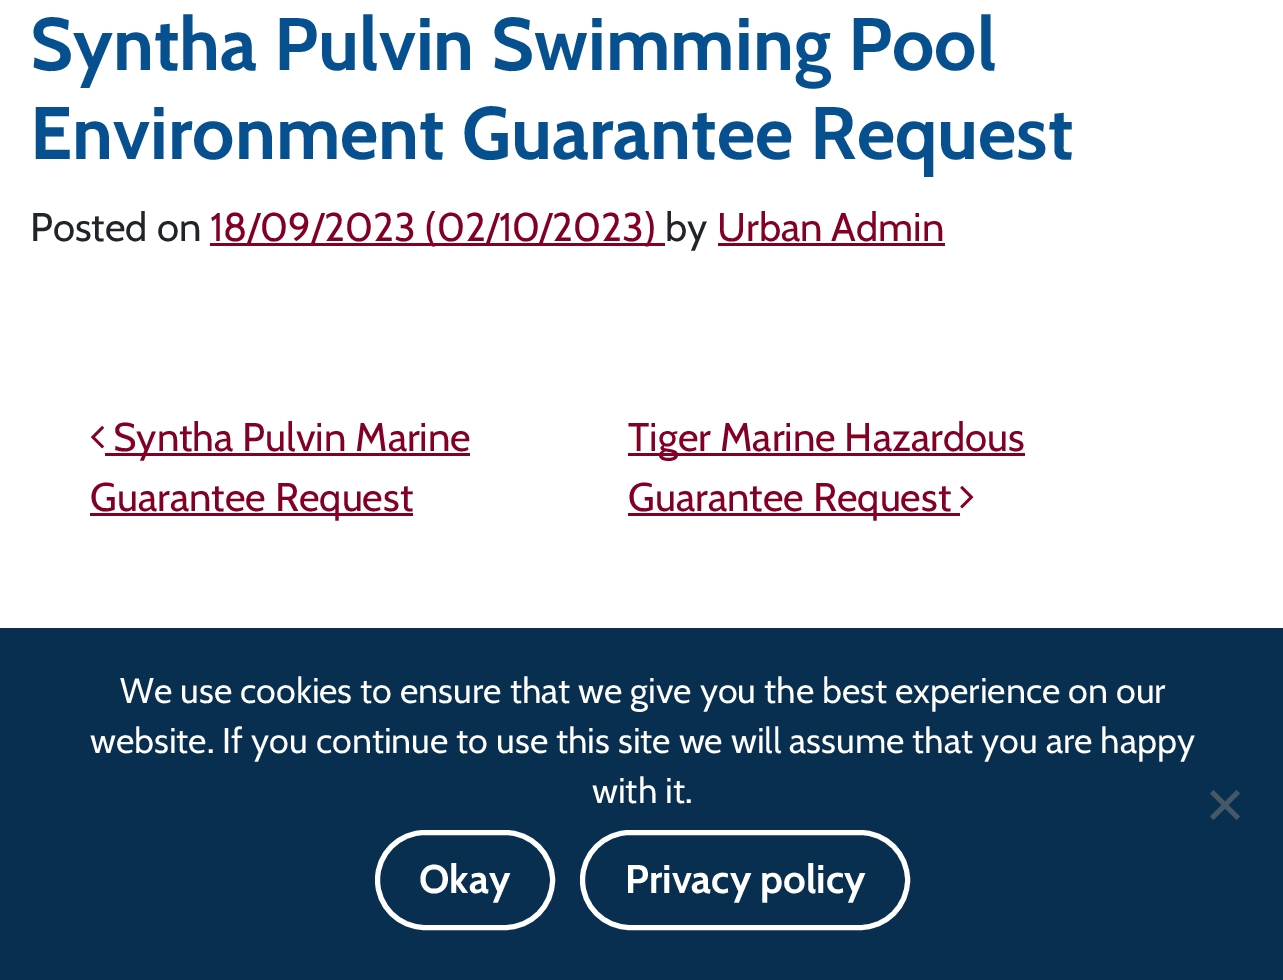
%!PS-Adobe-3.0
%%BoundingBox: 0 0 1283 980
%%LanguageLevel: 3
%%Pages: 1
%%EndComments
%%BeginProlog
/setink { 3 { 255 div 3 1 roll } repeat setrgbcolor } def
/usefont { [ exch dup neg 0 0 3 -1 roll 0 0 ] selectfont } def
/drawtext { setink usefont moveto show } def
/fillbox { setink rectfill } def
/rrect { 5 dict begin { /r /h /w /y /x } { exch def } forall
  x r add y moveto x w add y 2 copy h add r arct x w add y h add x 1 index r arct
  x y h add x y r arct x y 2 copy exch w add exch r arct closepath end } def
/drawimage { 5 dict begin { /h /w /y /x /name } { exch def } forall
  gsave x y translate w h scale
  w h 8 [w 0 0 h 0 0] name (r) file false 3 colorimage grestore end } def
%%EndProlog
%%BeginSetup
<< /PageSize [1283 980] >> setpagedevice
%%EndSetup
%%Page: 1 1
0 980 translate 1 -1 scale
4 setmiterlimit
0 0 1283 980 255 255 255 fillbox
(Syntha Pulvin Swimming Pool) 30 70 /Cabin-Bold 74.25 6 80 143 drawtext
(Environment Guarantee Request) 30 159 /Cabin-Bold 74.25 6 80 143 drawtext
(Posted on) 30 241 /Cabin-Regular 40 33 37 41 drawtext
210 243 455 3 130 0 36 fillbox
(18/09/2023 \(02/10/2023\)) 210 241 /Cabin-Regular 40 130 0 36 drawtext
(by) 665 241 /Cabin-Regular 40 33 37 41 drawtext
(Urban Admin) 717 241 /Cabin-Regular 40 130 0 36 drawtext
718 243 227 3 130 0 36 fillbox
(assets/img1.rgb) 91 426 13 23 drawimage
105 453 365 3 130 0 36 fillbox
(Syntha Pulvin Marine) 113 451 /Cabin-Regular 40 130 0 36 drawtext
90 513 323 3 130 0 36 fillbox
(Guarantee Request) 90 511 /Cabin-Regular 40 130 0 36 drawtext
628 453 397 3 130 0 36 fillbox
(Tiger Marine Hazardous) 628 451 /Cabin-Regular 40 130 0 36 drawtext
628 513 332 3 130 0 36 fillbox
(Guarantee Request) 628 511 /Cabin-Regular 40 130 0 36 drawtext
(assets/img2.rgb) 960 486 14 23 drawimage
0 628 1283 352 8 47 79 fillbox
(We use cookies to ensure that we give you the best experience on our) 120 703 /Cabin-Regular 35.75 255 255 255 drawtext
(website. If you continue to use this site we will assume that you are happy) 90 753 /Cabin-Regular 35.75 255 255 255 drawtext
(with it.) 592 803 /Cabin-Regular 35.75 255 255 255 drawtext
68 88 104 setink
1236.5 790 moveto 1240 793.5 lineto 1213.5 820 lineto 1210 816.5 lineto closepath fill
1210 793.5 moveto 1213.5 790 lineto 1240 816.5 lineto 1236.5 820 lineto closepath fill
255 255 255 setink
5 setlinewidth
377.5 832.5 175 95 47.5 rrect stroke
(Okay) 419 893 /Cabin-Bold 40 255 255 255 drawtext
582.5 832.5 325 95 47.5 rrect stroke
(Privacy policy) 625 893 /Cabin-Bold 40 255 255 255 drawtext
showpage
%%EOF
